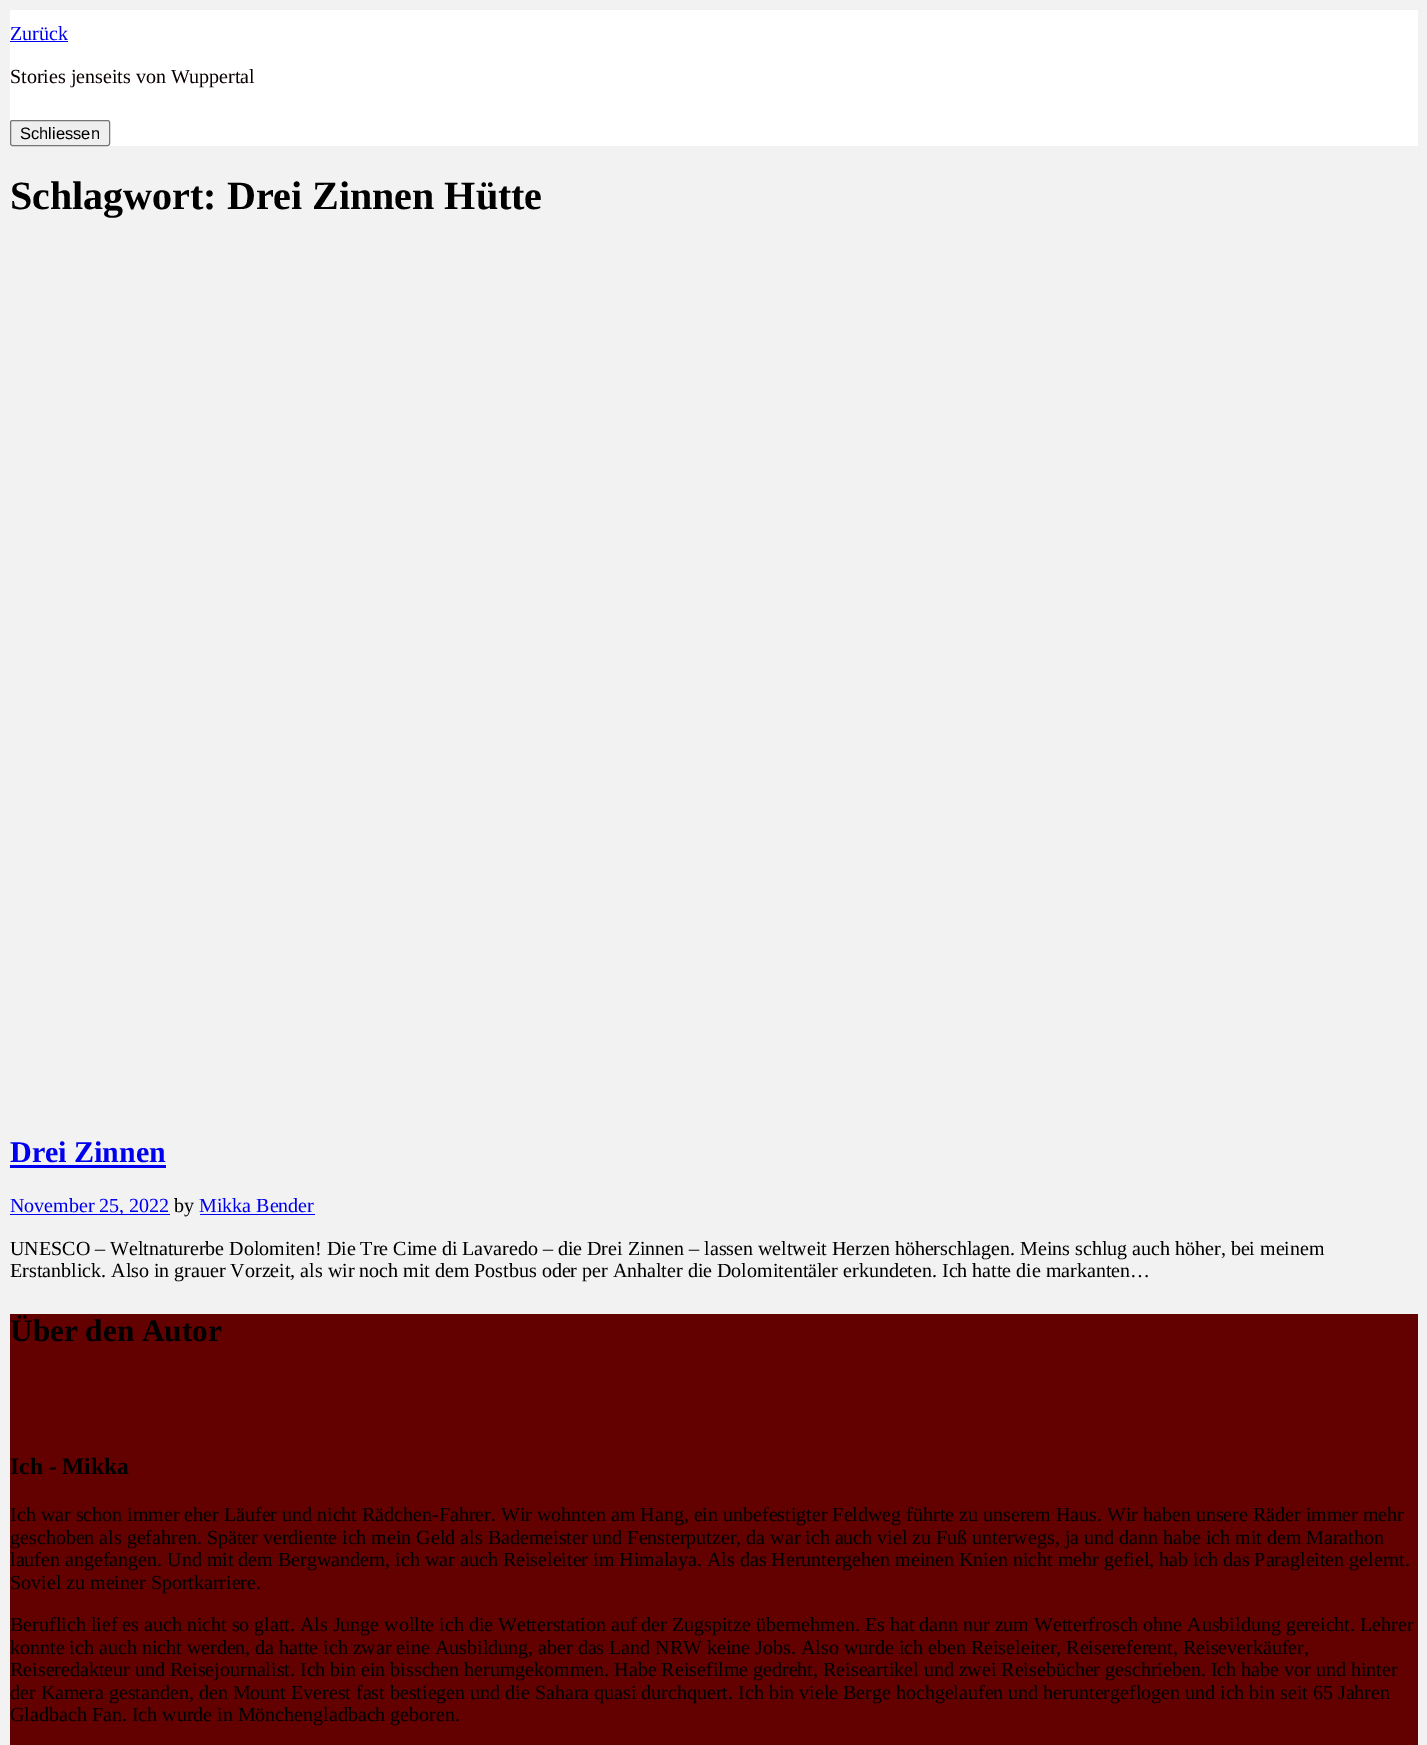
%!PS-Adobe-3.0
%%BoundingBox: 0 0 1427 1745
%%LanguageLevel: 3
%%Pages: 1
%%EndComments
%%BeginProlog
/setink { 3 { 255 div 3 1 roll } repeat setrgbcolor } def
/usefont { [ exch dup neg 0 0 3 -1 roll 0 0 ] selectfont } def
/drawtext { setink usefont moveto show } def
/fillbox { setink rectfill } def
/rrect { 5 dict begin { /r /h /w /y /x } { exch def } forall
  x r add y moveto x w add y 2 copy h add r arct x w add y h add x 1 index r arct
  x y h add x y r arct x y 2 copy exch w add exch r arct closepath end } def
%%EndProlog
%%BeginSetup
<< /PageSize [1427 1745] >> setpagedevice
%%EndSetup
%%Page: 1 1
0 1745 translate 1 -1 scale
4 setmiterlimit
0 0 1427 1745 242 242 242 fillbox
10 10 1408 136 255 255 255 fillbox
(Zurück) 10 40 /LiberationSerif-Regular 20 0 0 238 drawtext
10 41 58 1 0 0 238 fillbox
(Stories jenseits von Wuppertal) 10 83 /LiberationSerif-Regular 20 10 0 0 drawtext
239 239 239 setink
10.5 120.5 99 25 2 rrect gsave fill grestore
118 118 118 setink
stroke
(Schliessen) 20 139 /LiberationSans-Regular 16.5 0 0 0 drawtext
(Schlagwort: Drei Zinnen Hütte) 10 209 /LiberationSerif-Bold 40 0 0 0 drawtext
(Drei Zinnen) 10 1162 /LiberationSerif-Bold 30 0 0 238 drawtext
10 1165 156 3 0 0 238 fillbox
10 1214 160 1 0 0 238 fillbox
(November 25, 2022) 10 1212 /LiberationSerif-Regular 20 0 0 238 drawtext
(by) 174 1212 /LiberationSerif-Regular 20 0 0 0 drawtext
(Mikka Bender) 199 1212 /LiberationSerif-Regular 20 0 0 238 drawtext
200 1214 115 1 0 0 238 fillbox
(UNESCO – Weltnaturerbe Dolomiten! Die Tre Cime di Lavaredo – die Drei Zinnen – lassen weltweit Herzen höherschlagen. Meins schlug auch höher, bei meinem) 10 1255 /LiberationSerif-Regular 20 0 0 0 drawtext
(Erstanblick. Also in grauer Vorzeit, als wir noch mit dem Postbus oder per Anhalter die Dolomitentäler erkundeten. Ich hatte die markanten…) 10 1277 /LiberationSerif-Regular 20 0 0 0 drawtext
10 1314 1408 431 99 0 0 fillbox
(Über den Autor) 10 1341 /LiberationSerif-Bold 31.25 0 0 0 drawtext
(Ich - Mikka) 10 1474 /LiberationSerif-Bold 23.5 0 0 0 drawtext
(Ich war schon immer eher Läufer und nicht Rädchen-Fahrer. Wir wohnten am Hang, ein unbefestigter Feldweg führte zu unserem Haus. Wir haben unsere Räder immer mehr) 10 1521 /LiberationSerif-Regular 20 0 0 0 drawtext
(geschoben als gefahren. Später verdiente ich mein Geld als Bademeister und Fensterputzer, da war ich auch viel zu Fuß unterwegs, ja und dann habe ich mit dem Marathon) 10 1544 /LiberationSerif-Regular 20 0 0 0 drawtext
(laufen angefangen. Und mit dem Bergwandern, ich war auch Reiseleiter im Himalaya. Als das Heruntergehen meinen Knien nicht mehr gefiel, hab ich das Paragleiten gelernt.) 10 1566 /LiberationSerif-Regular 20 0 0 0 drawtext
(Soviel zu meiner Sportkarriere.) 10 1589 /LiberationSerif-Regular 20 0 0 0 drawtext
(Beruflich lief es auch nicht so glatt. Als Junge wollte ich die Wetterstation auf der Zugspitze übernehmen. Es hat dann nur zum Wetterfrosch ohne Ausbildung gereicht. Lehrer) 10 1631 /LiberationSerif-Regular 20 0 0 0 drawtext
(konnte ich auch nicht werden, da hatte ich zwar eine Ausbildung, aber das Land NRW keine Jobs. Also wurde ich eben Reiseleiter, Reisereferent, Reiseverkäufer,) 10 1654 /LiberationSerif-Regular 20 0 0 0 drawtext
(Reiseredakteur und Reisejournalist. Ich bin ein bisschen herumgekommen. Habe Reisefilme gedreht, Reiseartikel und zwei Reisebücher geschrieben. Ich habe vor und hinter) 10 1676 /LiberationSerif-Regular 20 0 0 0 drawtext
(der Kamera gestanden, den Mount Everest fast bestiegen und die Sahara quasi durchquert. Ich bin viele Berge hochgelaufen und heruntergeflogen und ich bin seit 65 Jahren) 10 1699 /LiberationSerif-Regular 20 0 0 0 drawtext
(Gladbach Fan. Ich wurde in Mönchengladbach geboren.) 10 1721 /LiberationSerif-Regular 20 0 0 0 drawtext
showpage
%%EOF
